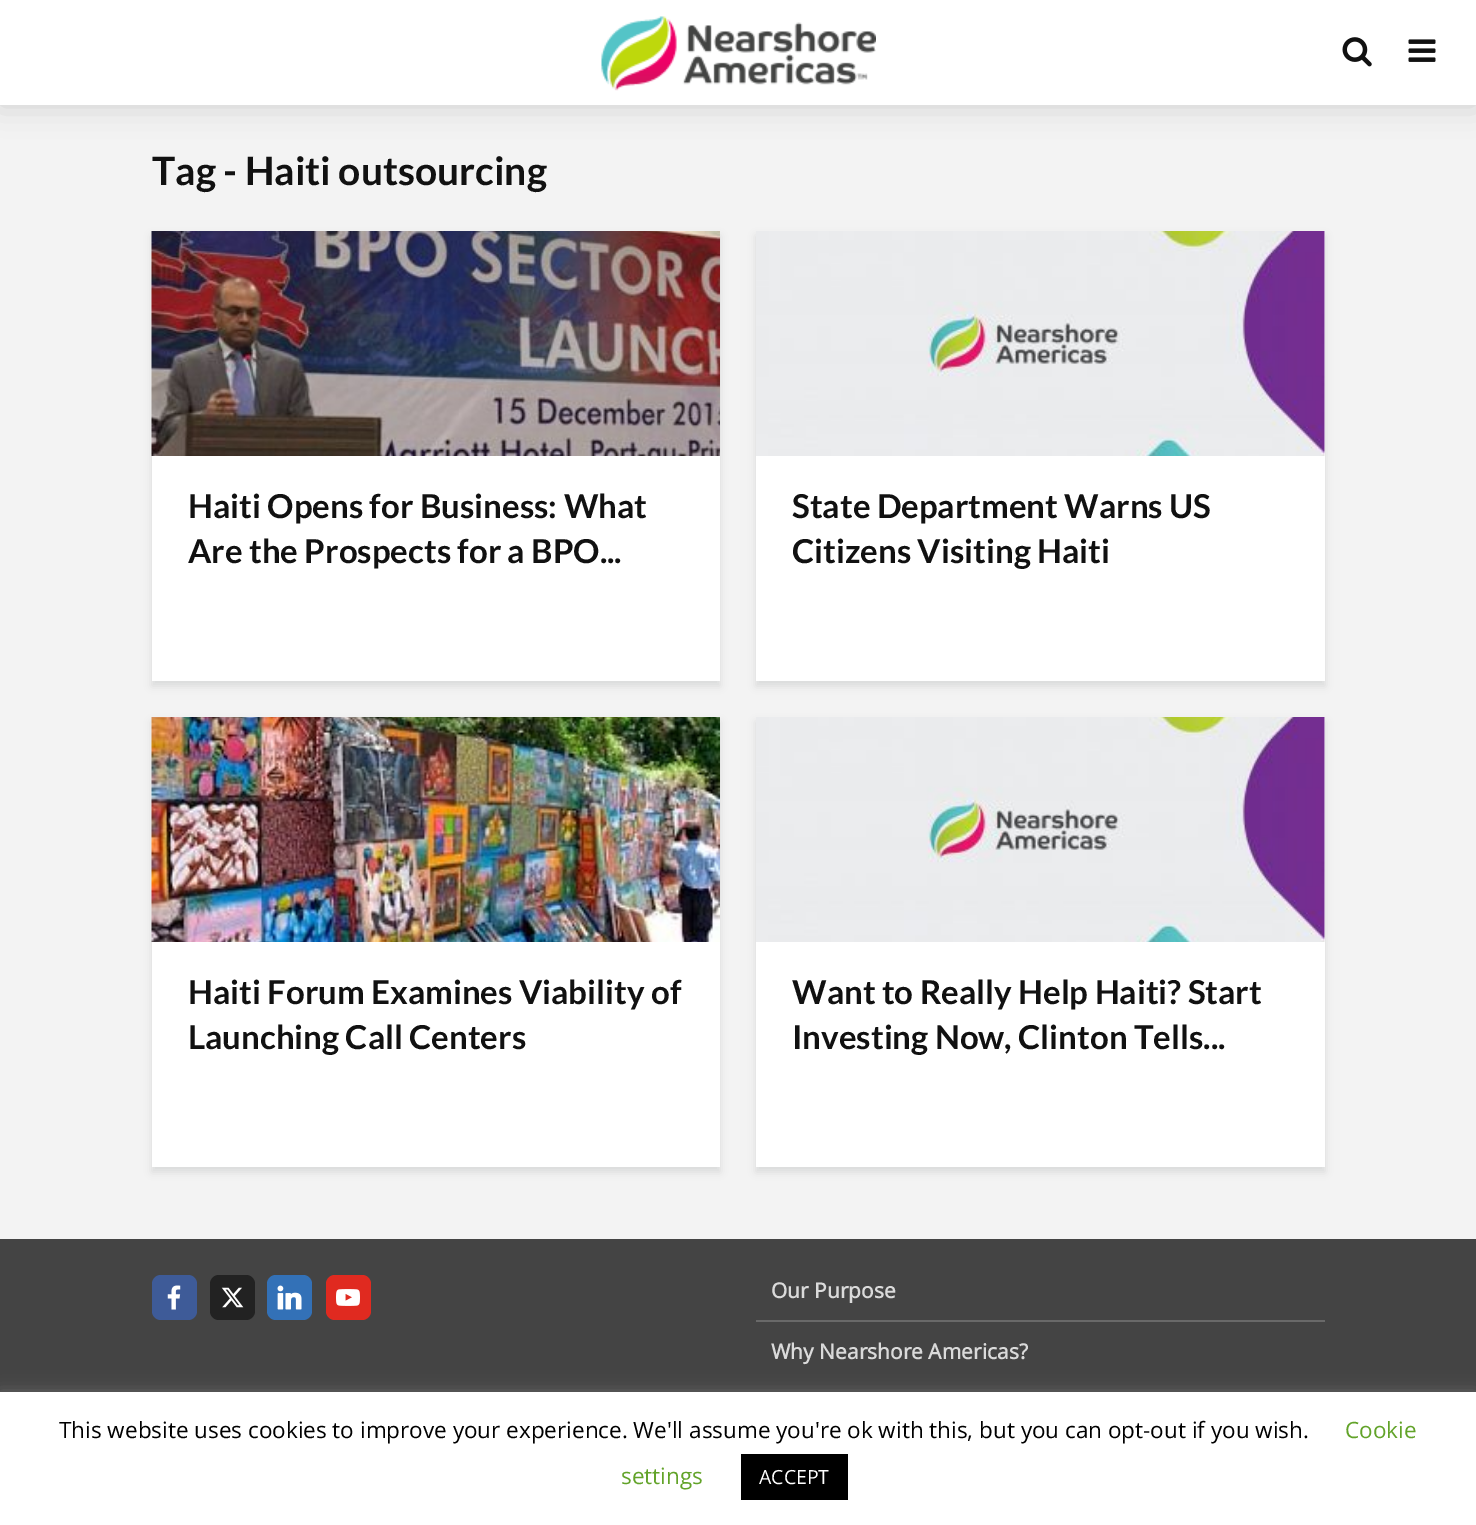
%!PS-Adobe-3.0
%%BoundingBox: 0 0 1476 1525
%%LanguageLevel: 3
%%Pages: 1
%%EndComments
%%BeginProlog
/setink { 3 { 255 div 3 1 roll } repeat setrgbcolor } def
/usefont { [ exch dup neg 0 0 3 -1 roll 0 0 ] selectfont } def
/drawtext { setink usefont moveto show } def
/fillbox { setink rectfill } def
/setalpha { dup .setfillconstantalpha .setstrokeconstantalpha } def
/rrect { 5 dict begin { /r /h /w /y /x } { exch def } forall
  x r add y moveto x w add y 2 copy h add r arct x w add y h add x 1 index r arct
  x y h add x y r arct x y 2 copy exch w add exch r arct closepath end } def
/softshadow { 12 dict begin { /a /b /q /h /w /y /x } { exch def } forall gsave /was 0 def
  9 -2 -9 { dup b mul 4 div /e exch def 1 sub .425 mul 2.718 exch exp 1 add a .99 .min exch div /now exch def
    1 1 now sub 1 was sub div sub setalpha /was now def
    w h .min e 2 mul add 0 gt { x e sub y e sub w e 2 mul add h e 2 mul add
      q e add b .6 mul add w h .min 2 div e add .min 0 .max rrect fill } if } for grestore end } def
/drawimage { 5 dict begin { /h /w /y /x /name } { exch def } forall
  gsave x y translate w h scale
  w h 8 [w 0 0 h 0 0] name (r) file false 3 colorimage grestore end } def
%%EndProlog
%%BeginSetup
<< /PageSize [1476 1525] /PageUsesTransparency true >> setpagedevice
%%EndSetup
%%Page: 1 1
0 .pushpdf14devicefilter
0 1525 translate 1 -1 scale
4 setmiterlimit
0 0 1476 1525 243 243 243 fillbox
0 0 0 setink
0 0 1476 105 0 15 0.15 softshadow
0 0 1476 105 255 255 255 fillbox
(assets/img1.rgb) 601 16 275 75 drawimage
(assets/img2.rgb) 1342 37 30 30 drawimage
(assets/img3.rgb) 1408 39 28 23 drawimage
(Tag - Haiti outsourcing) 152 185 /Lato-Bold 39 17 17 17 drawtext
0 1 1 setink
152 236 568 450 0 4 0.1 softshadow
152 456 568 225 255 255 255 fillbox
(assets/img4.rgb) 151 231 569 225 drawimage
(Haiti Opens for Business: What) 188 518 /Lato-Bold 33 17 17 17 drawtext
(Are the Prospects for a BPO...) 188 563 /Lato-Bold 33 17 17 17 drawtext
0 1 1 setink
756 236 569 450 0 4 0.1 softshadow
756 231 569 450 255 255 255 fillbox
(assets/img5.rgb) 756 231 569 225 drawimage
(State Department Warns US) 792 518 /Lato-Bold 33 17 17 17 drawtext
(Citizens Visiting Haiti) 792 563 /Lato-Bold 33 17 17 17 drawtext
0 1 1 setink
152 722 568 450 0 4 0.1 softshadow
152 942 568 225 255 255 255 fillbox
(assets/img6.rgb) 151 717 569 225 drawimage
(Haiti Forum Examines Viability of) 188 1004 /Lato-Bold 33 17 17 17 drawtext
(Launching Call Centers) 188 1049 /Lato-Bold 33 17 17 17 drawtext
0 1 1 setink
756 722 569 450 0 4 0.1 softshadow
756 717 569 450 255 255 255 fillbox
(assets/img5.rgb) 756 717 569 225 drawimage
(Want to Really Help Haiti? Start) 792 1004 /Lato-Bold 33 17 17 17 drawtext
(Investing Now, Clinton Tells...) 792 1049 /Lato-Bold 33 17 17 17 drawtext
0 1239 1476 153 68 68 68 fillbox
62 91 152 setink
152 1275 45 45 9 rrect fill
(assets/img7.rgb) 167 1285 14 25 drawimage
34 34 34 setink
210 1275 45 45 9 rrect fill
(assets/img8.rgb) 221 1287 23 21 drawimage
51 113 183 setink
267 1275 45 45 9 rrect fill
(assets/img9.rgb) 277 1285 25 25 drawimage
224 42 32 setink
326 1275 45 45 9 rrect fill
(assets/img10.rgb) 336 1289 24 17 drawimage
756 1320 569 2 105 105 105 fillbox
(Our Purpose) 771 1298 /OpenSans-Bold 21 218 218 218 drawtext
(Why Nearshore Americas?) 771 1359 /OpenSans-Bold 21 218 218 218 drawtext
172 171 171 setink
0 1391 1476 133 0 7.5 0.3 softshadow
0 1392 1476 133 255 255 255 fillbox
(This website uses cookies to improve your experience. We'll assume you're ok with this, but you can opt-out if you wish.) 59 1438 /OpenSans-Regular 22.5 0 0 0 drawtext
(Cookie) 1345 1438 /OpenSans-Regular 22.5 98 163 41 drawtext
(settings) 621 1484 /OpenSans-Regular 22.5 98 163 41 drawtext
741 1454 107 46 0 0 0 fillbox
(ACCEPT) 759 1484 /OpenSans-Regular 19.5 255 255 255 drawtext
.poppdf14devicefilter showpage
%%EOF
